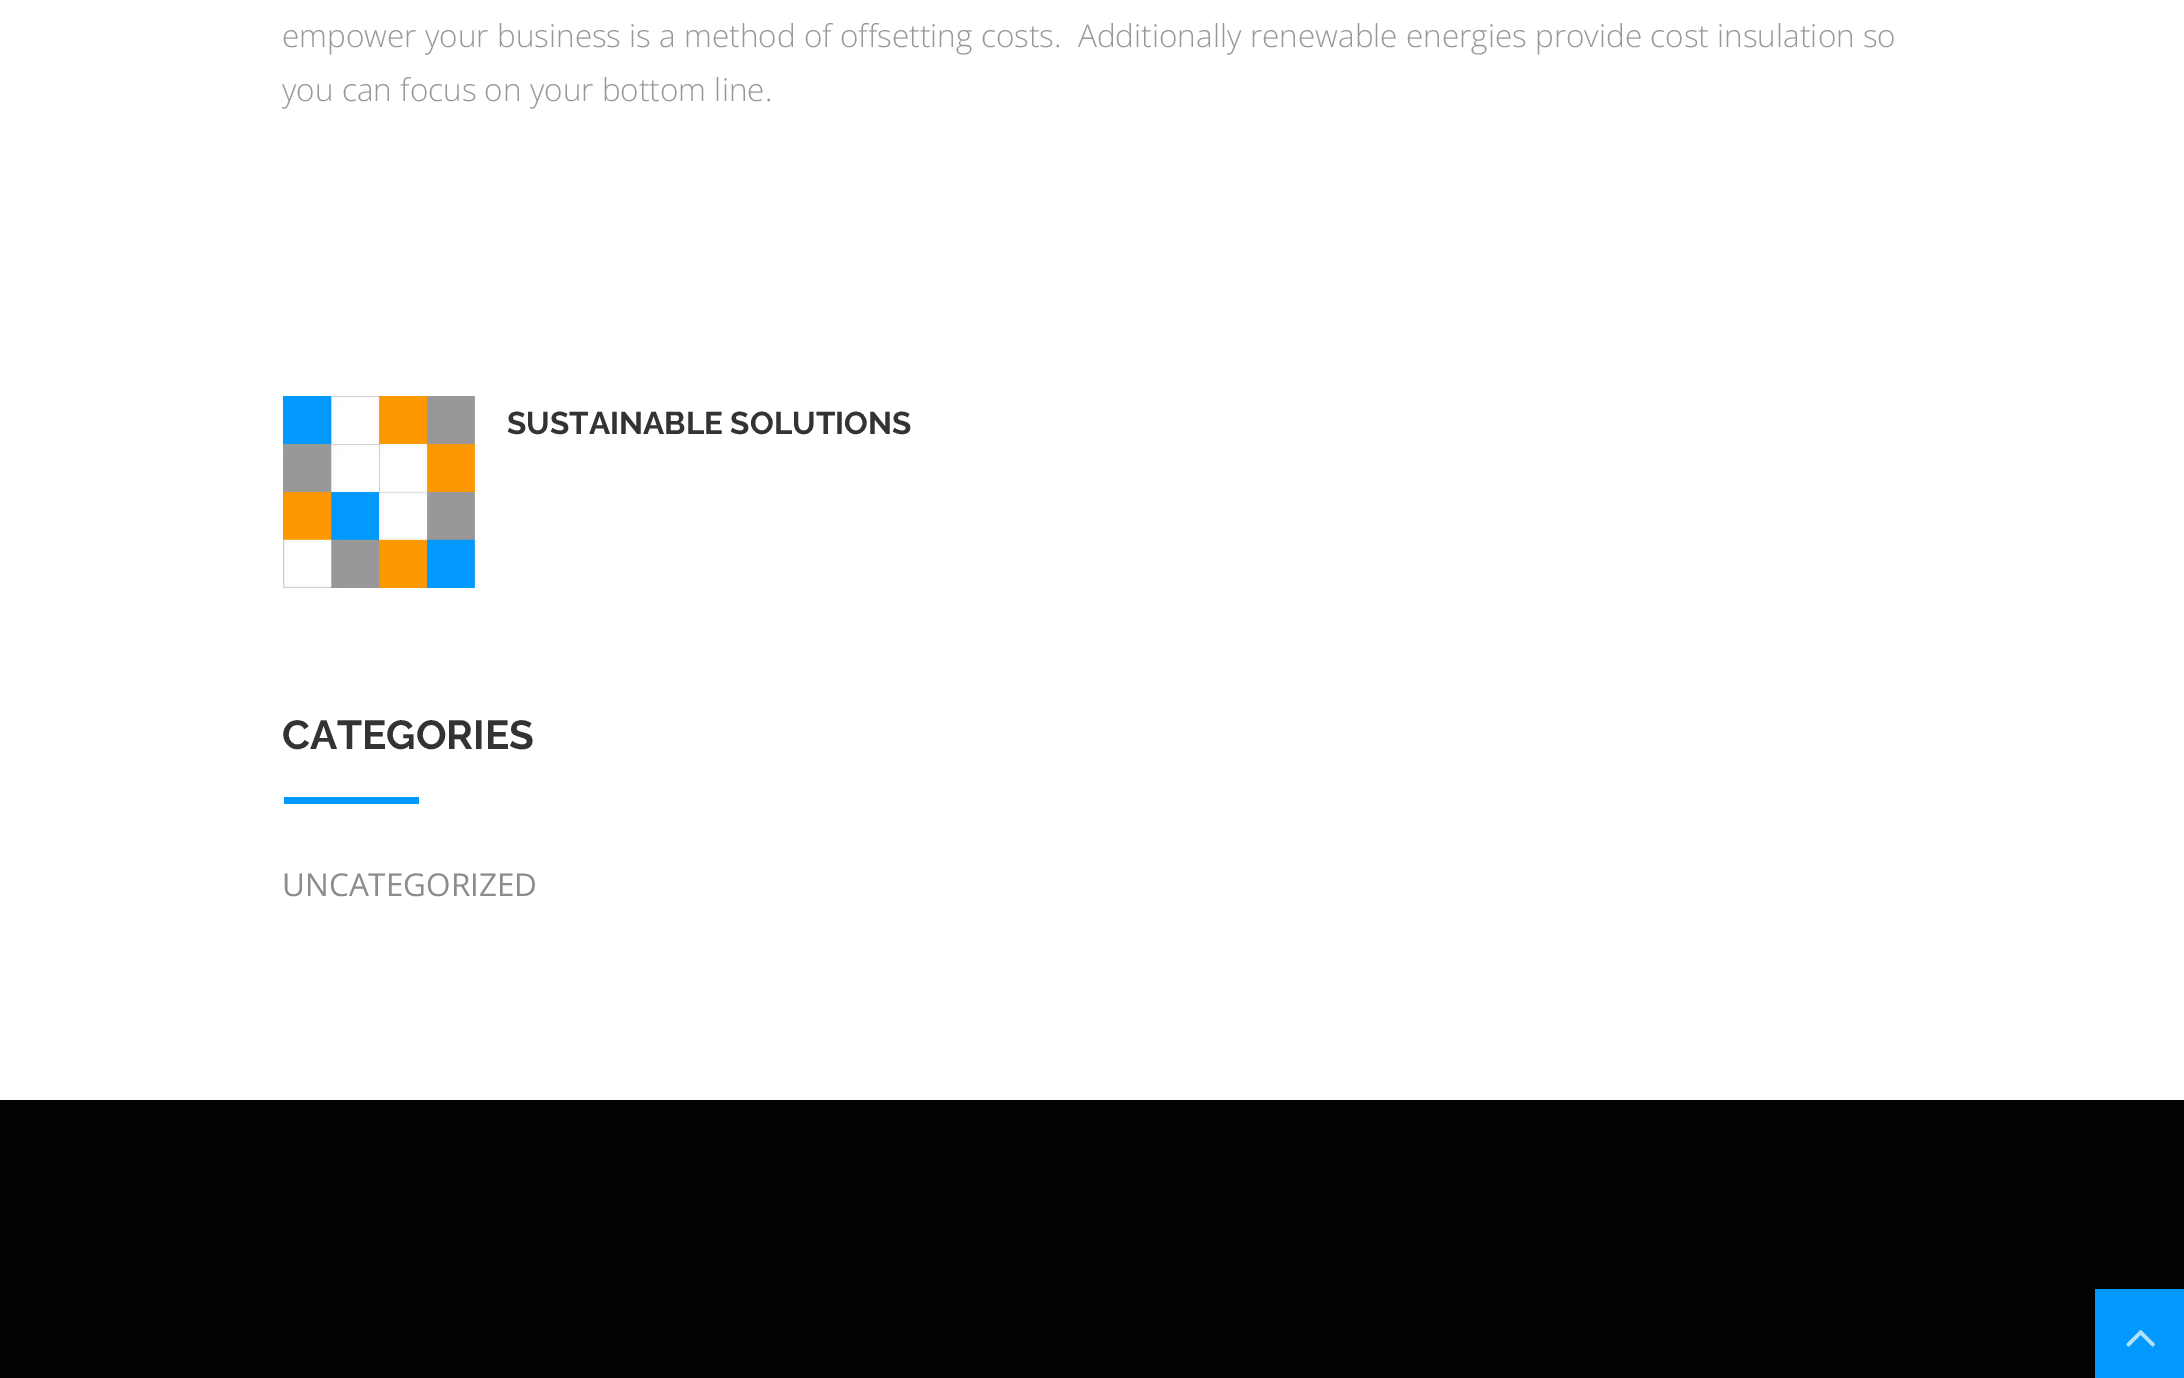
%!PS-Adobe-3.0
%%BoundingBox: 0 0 2184 1378
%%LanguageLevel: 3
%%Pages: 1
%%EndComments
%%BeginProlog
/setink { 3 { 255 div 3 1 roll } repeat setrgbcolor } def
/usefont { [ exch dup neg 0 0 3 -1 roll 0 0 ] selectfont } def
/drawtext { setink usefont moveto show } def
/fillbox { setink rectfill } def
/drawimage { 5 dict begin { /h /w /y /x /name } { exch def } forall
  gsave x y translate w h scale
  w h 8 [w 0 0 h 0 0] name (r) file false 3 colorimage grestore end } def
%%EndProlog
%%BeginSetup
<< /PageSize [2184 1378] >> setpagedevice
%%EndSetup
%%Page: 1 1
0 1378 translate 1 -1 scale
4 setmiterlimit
0 0 2184 1378 255 255 255 fillbox
(empower your business is a method of offsetting costs.  Additionally renewable energies provide cost insulation so) 282 47 /OpenSans-Light 31.5 152 152 152 drawtext
(you can focus on your bottom line.) 282 101 /OpenSans-Light 31.5 152 152 152 drawtext
(assets/img1.rgb) 283 396 192 192 drawimage
(SUSTAINABLE SOLUTIONS) 507 434 /Raleway-Bold 31.5 51 51 51 drawtext
(CATEGORIES) 282 749 /Raleway-Bold 40.5 51 51 51 drawtext
284 797 135 7 1 153 254 fillbox
(UNCATEGORIZED) 282 896 /OpenSans-Regular 31.5 140 140 140 drawtext
0 1100 2184 278 2 2 2 fillbox
2095 1289 89 89 1 153 254 fillbox
(assets/img2.rgb) 2126 1330 29 17 drawimage
showpage
%%EOF
